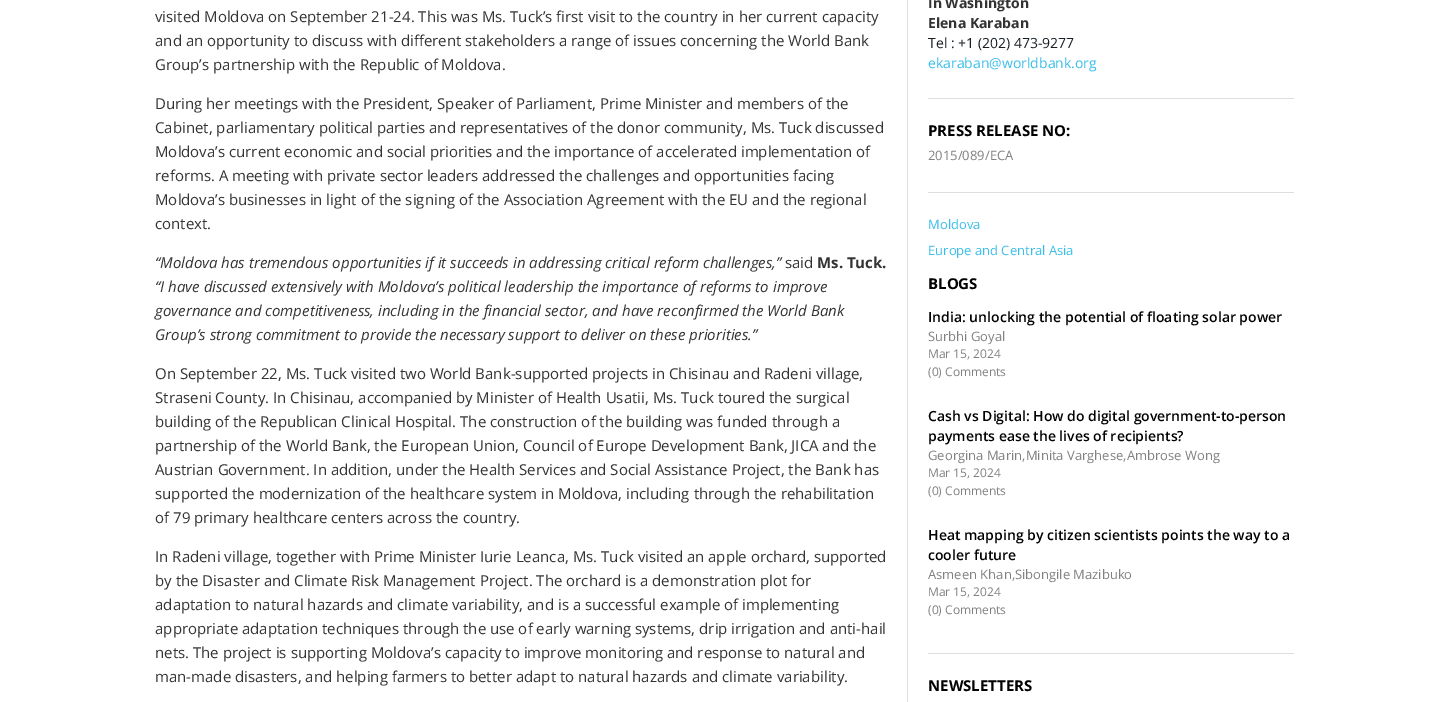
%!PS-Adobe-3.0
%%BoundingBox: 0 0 1449 702
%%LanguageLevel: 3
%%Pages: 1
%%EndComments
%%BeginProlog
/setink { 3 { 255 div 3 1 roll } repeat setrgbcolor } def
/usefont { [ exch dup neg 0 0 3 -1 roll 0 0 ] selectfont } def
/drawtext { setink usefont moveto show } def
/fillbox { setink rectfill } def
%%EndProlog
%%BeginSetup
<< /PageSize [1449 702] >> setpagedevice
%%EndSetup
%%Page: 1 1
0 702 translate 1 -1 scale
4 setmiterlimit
0 0 1449 702 255 255 255 fillbox
907 0 1 702 222 222 222 fillbox
(visited Moldova on September 21-24. This was Ms. Tuck’s first visit to the country in her current capacity) 155 22 /OpenSans-Regular 15 51 51 51 drawtext
(and an opportunity to discuss with different stakeholders a range of issues concerning the World Bank) 155 46 /OpenSans-Regular 15 51 51 51 drawtext
(Group’s partnership with the Republic of Moldova.) 155 70 /OpenSans-Regular 15 51 51 51 drawtext
(During her meetings with the President, Speaker of Parliament, Prime Minister and members of the) 155 109 /OpenSans-Regular 15 51 51 51 drawtext
(Cabinet, parliamentary political parties and representatives of the donor community, Ms. Tuck discussed) 155 133 /OpenSans-Regular 15 51 51 51 drawtext
(Moldova’s current economic and social priorities and the importance of accelerated implementation of) 155 157 /OpenSans-Regular 15 51 51 51 drawtext
(reforms. A meeting with private sector leaders addressed the challenges and opportunities facing) 155 181 /OpenSans-Regular 15 51 51 51 drawtext
(Moldova’s businesses in light of the signing of the Association Agreement with the EU and the regional) 155 205 /OpenSans-Regular 15 51 51 51 drawtext
(context.) 155 229 /OpenSans-Regular 15 51 51 51 drawtext
(“Moldova has tremendous opportunities if it succeeds in addressing critical reform challenges,”) 155 268 /OpenSans-Italic 15 51 51 51 drawtext
(said) 785 268 /OpenSans-Regular 15 51 51 51 drawtext
(Ms. Tuck.) 817 268 /OpenSans-Bold 15 51 51 51 drawtext
(“I have discussed extensively with Moldova’s political leadership the importance of reforms to improve) 155 292 /OpenSans-Italic 15 51 51 51 drawtext
(governance and competitiveness, including in the financial sector, and have reconfirmed the World Bank) 155 316 /OpenSans-Italic 15 51 51 51 drawtext
(Group’s strong commitment to provide the necessary support to deliver on these priorities.”) 155 340 /OpenSans-Italic 15 51 51 51 drawtext
(On September 22, Ms. Tuck visited two World Bank-supported projects in Chisinau and Radeni village,) 155 379 /OpenSans-Regular 15 51 51 51 drawtext
(Straseni County. In Chisinau, accompanied by Minister of Health Usatii, Ms. Tuck toured the surgical) 155 403 /OpenSans-Regular 15 51 51 51 drawtext
(building of the Republican Clinical Hospital. The construction of the building was funded through a) 155 427 /OpenSans-Regular 15 51 51 51 drawtext
(partnership of the World Bank, the European Union, Council of Europe Development Bank, JICA and the) 155 451 /OpenSans-Regular 15 51 51 51 drawtext
(Austrian Government. In addition, under the Health Services and Social Assistance Project, the Bank has) 155 475 /OpenSans-Regular 15 51 51 51 drawtext
(supported the modernization of the healthcare system in Moldova, including through the rehabilitation) 155 499 /OpenSans-Regular 15 51 51 51 drawtext
(of 79 primary healthcare centers across the country.) 155 523 /OpenSans-Regular 15 51 51 51 drawtext
(In Radeni village, together with Prime Minister Iurie Leanca, Ms. Tuck visited an apple orchard, supported) 155 562 /OpenSans-Regular 15 51 51 51 drawtext
(by the Disaster and Climate Risk Management Project. The orchard is a demonstration plot for) 155 586 /OpenSans-Regular 15 51 51 51 drawtext
(adaptation to natural hazards and climate variability, and is a successful example of implementing) 155 610 /OpenSans-Regular 15 51 51 51 drawtext
(appropriate adaptation techniques through the use of early warning systems, drip irrigation and anti-hail) 155 634 /OpenSans-Regular 15 51 51 51 drawtext
(nets. The project is supporting Moldova’s capacity to improve monitoring and response to natural and) 155 658 /OpenSans-Regular 15 51 51 51 drawtext
(man-made disasters, and helping farmers to better adapt to natural hazards and climate variability.) 155 682 /OpenSans-Regular 15 51 51 51 drawtext
(In Washington) 928 8 /OpenSans-Bold 14 51 51 51 drawtext
(Elena Karaban) 928 28 /OpenSans-Bold 14 51 51 51 drawtext
(Tel : +1 \(202\) 473-9277) 928 48 /OpenSans-Regular 14 24 31 37 drawtext
(ekaraban@worldbank.org) 928 68 /OpenSans-Regular 14 57 190 234 drawtext
928 98 366 1 222 222 222 fillbox
(PRESS RELEASE NO:) 928 136 /OpenSans-Bold 15 0 0 0 drawtext
(2015/089/ECA) 928 160 /OpenSans-Regular 13 129 129 129 drawtext
928 192 366 1 222 222 222 fillbox
(Moldova) 928 229 /OpenSans-Regular 13 57 190 234 drawtext
(Europe and Central Asia) 928 255 /OpenSans-Regular 13 57 190 234 drawtext
(BLOGS) 928 289 /OpenSans-Bold 15 0 0 0 drawtext
(India: unlocking the potential of floating solar power) 928 322 /OpenSans-SemiBold 14 0 0 0 drawtext
(Surbhi Goyal) 928 341 /OpenSans-Regular 13 129 129 129 drawtext
(Mar 15, 2024) 928 358 /OpenSans-Regular 12 129 129 129 drawtext
(\(0\) Comments) 928 376 /OpenSans-Regular 12 129 129 129 drawtext
(Cash vs Digital: How do digital government-to-person) 928 421 /OpenSans-SemiBold 14 0 0 0 drawtext
(payments ease the lives of recipients?) 928 441 /OpenSans-SemiBold 14 0 0 0 drawtext
(Georgina Marin,Minita Varghese,Ambrose Wong) 928 460 /OpenSans-Regular 13 129 129 129 drawtext
(Mar 15, 2024) 928 477 /OpenSans-Regular 12 129 129 129 drawtext
(\(0\) Comments) 928 495 /OpenSans-Regular 12 129 129 129 drawtext
(Heat mapping by citizen scientists points the way to a) 928 540 /OpenSans-SemiBold 14 0 0 0 drawtext
(cooler future) 928 560 /OpenSans-SemiBold 14 0 0 0 drawtext
(Asmeen Khan,Sibongile Mazibuko) 928 579 /OpenSans-Regular 13 129 129 129 drawtext
(Mar 15, 2024) 928 596 /OpenSans-Regular 12 129 129 129 drawtext
(\(0\) Comments) 928 614 /OpenSans-Regular 12 129 129 129 drawtext
928 653 366 1 222 222 222 fillbox
(NEWSLETTERS) 928 691 /OpenSans-Bold 15 0 0 0 drawtext
showpage
%%EOF
